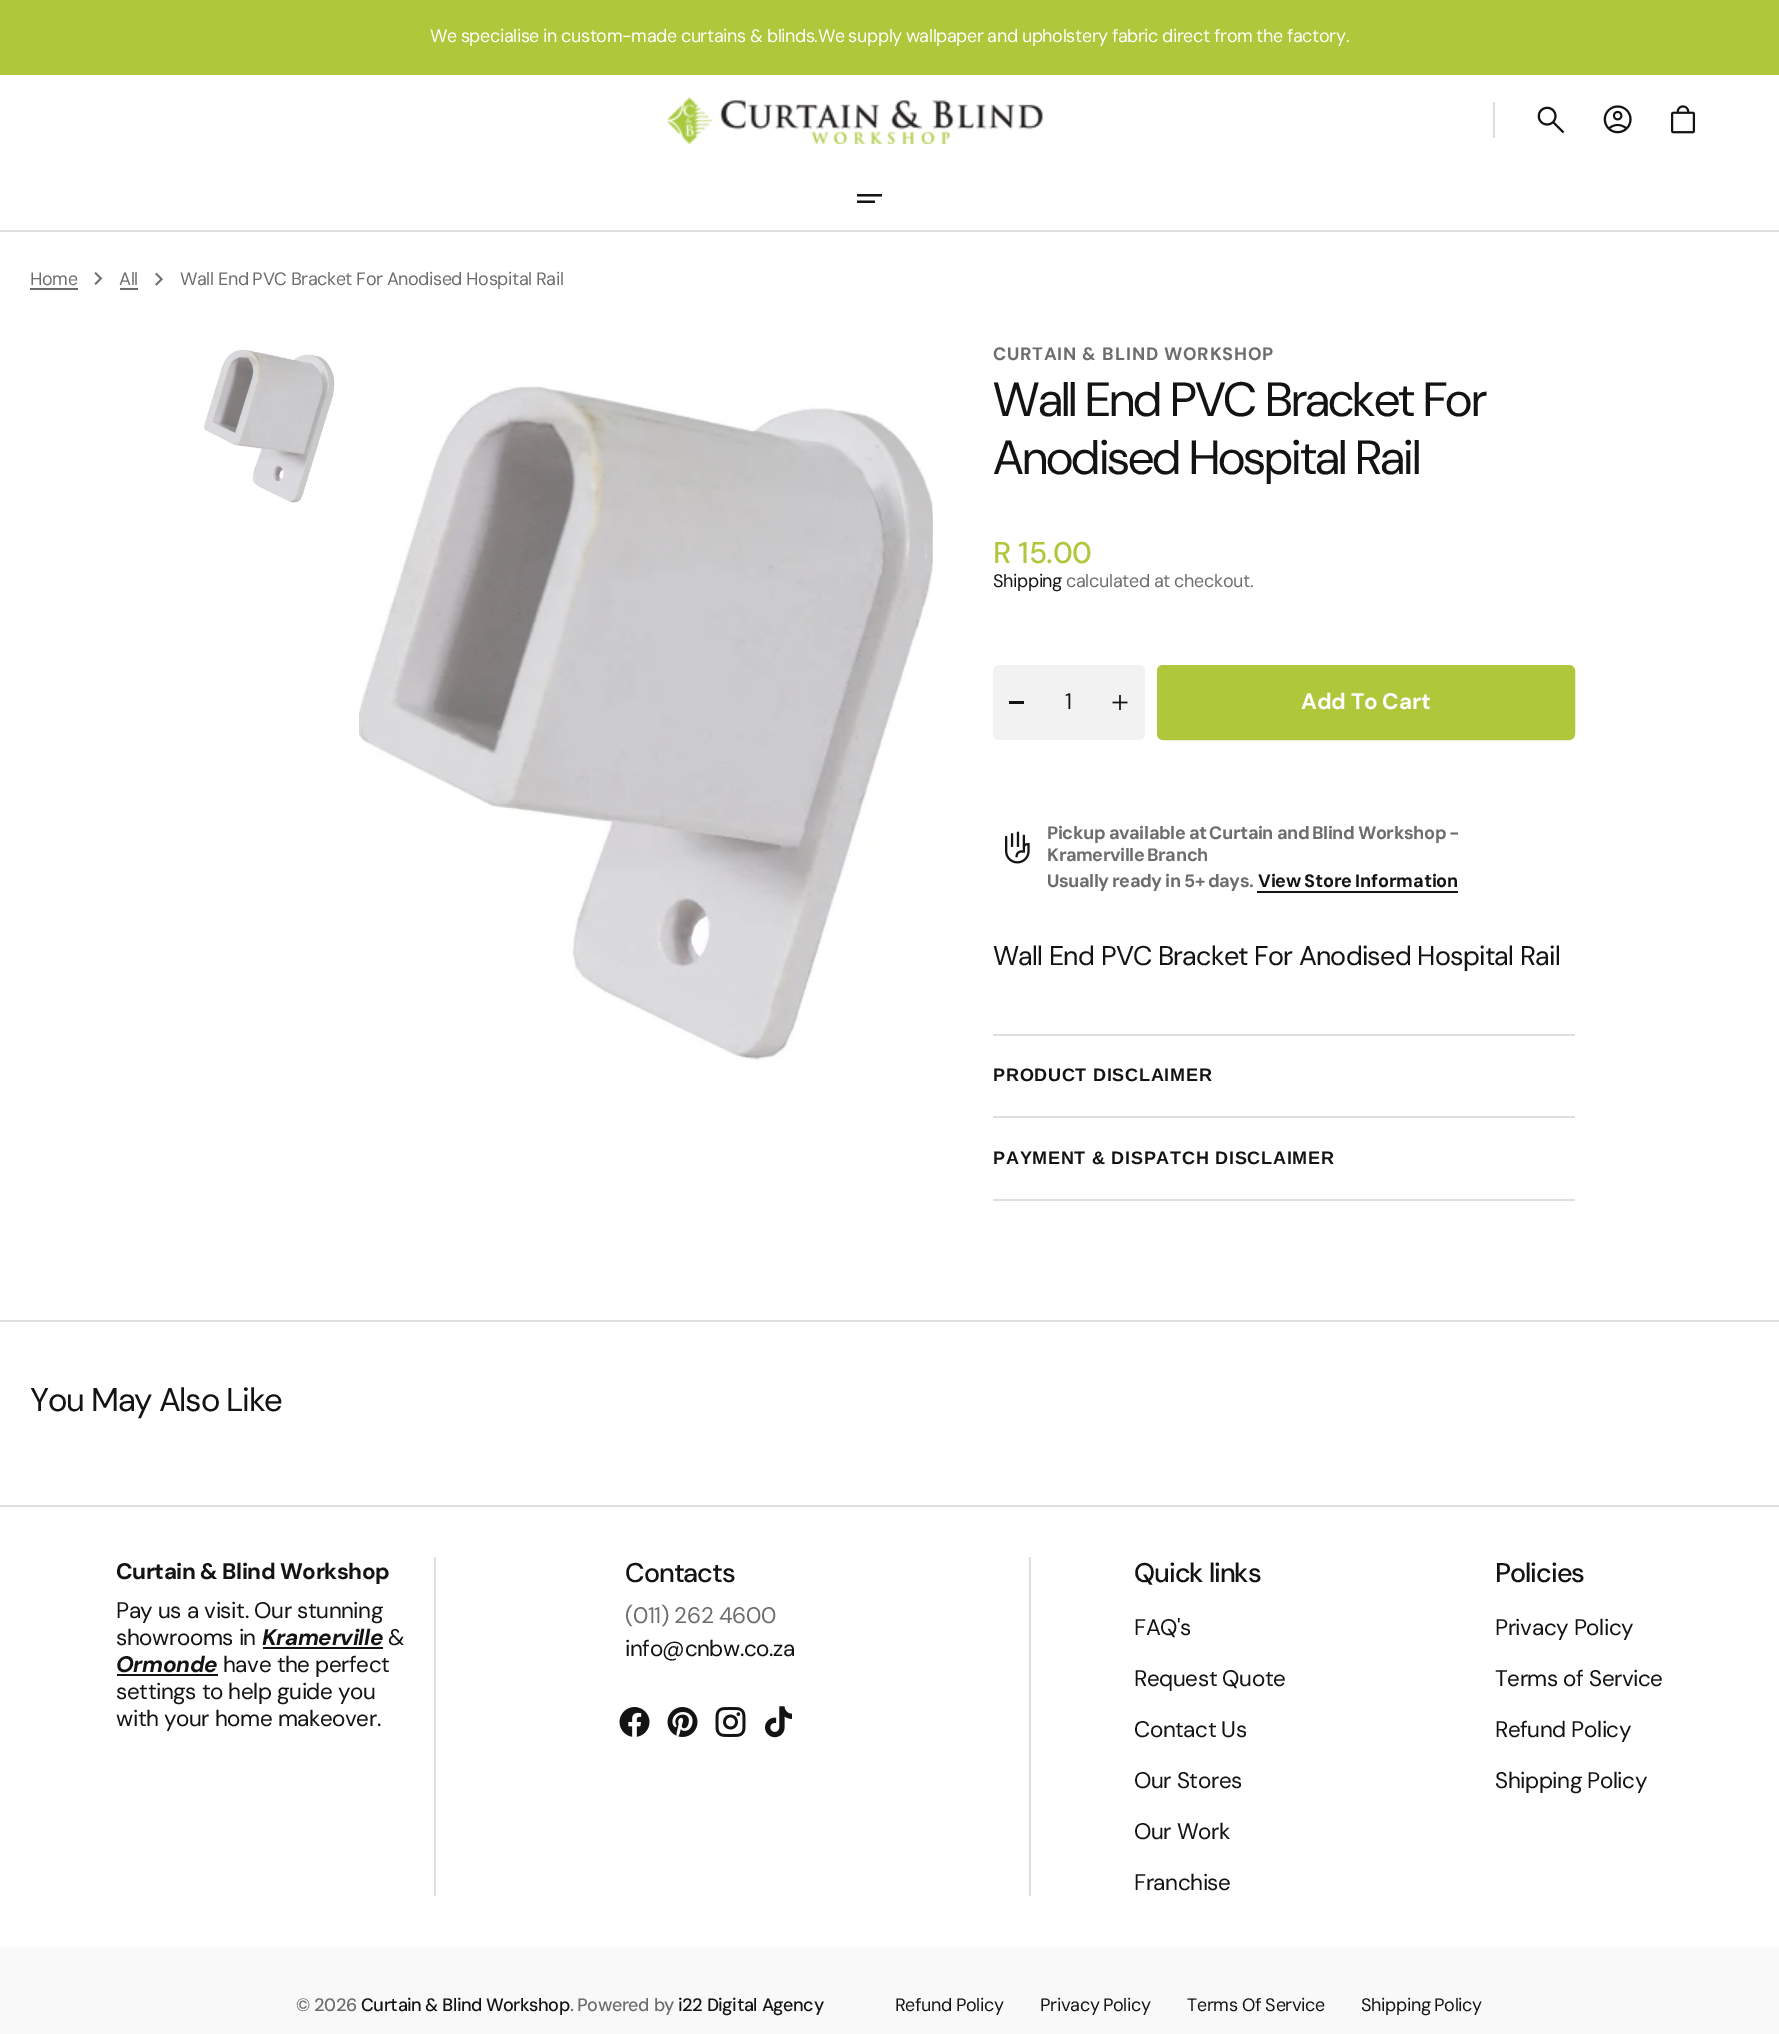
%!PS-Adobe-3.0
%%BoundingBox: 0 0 1779 2034
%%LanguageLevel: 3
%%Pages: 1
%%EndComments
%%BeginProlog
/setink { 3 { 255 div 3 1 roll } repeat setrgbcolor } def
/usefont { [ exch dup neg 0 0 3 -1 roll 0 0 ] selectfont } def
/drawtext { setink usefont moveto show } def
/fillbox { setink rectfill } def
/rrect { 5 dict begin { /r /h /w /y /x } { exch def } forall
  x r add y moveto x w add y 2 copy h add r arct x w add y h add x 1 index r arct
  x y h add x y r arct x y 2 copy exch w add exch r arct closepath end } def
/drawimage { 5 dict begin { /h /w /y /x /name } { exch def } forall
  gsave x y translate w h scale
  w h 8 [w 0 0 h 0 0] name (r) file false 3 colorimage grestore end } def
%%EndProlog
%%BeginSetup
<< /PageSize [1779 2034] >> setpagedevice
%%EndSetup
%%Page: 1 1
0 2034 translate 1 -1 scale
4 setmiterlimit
0 0 1779 2034 255 255 255 fillbox
0 0 1779 75 175 199 59 fillbox
/DMSans-Regular 18 usefont
255 255 255 setink
430 42 moveto -0.4 0 32 -0.45 0 (We specialise in custom-made curtains & blinds.We supply wallpaper and upholstery fabric direct from the factory.) awidthshow
(assets/img1.rgb) 667 97 376 47 drawimage
1493 102 2 36 223 223 223 fillbox
(assets/img2.rgb) 1537 106 28 28 drawimage
(assets/img3.rgb) 1603 105 29 29 drawimage
(assets/img4.rgb) 1671 105 25 29 drawimage
gsave
857 174 48 48 rectclip
19 19 19 setink
882 194 moveto 856.5 194 lineto 856.5 196.5 lineto 882 196.5 lineto closepath 875 200.5 moveto 856.5 200.5 lineto 856.5 203 lineto 875 203 lineto closepath eofill
grestore
0 230 1779 2 223 223 223 fillbox
109 109 109 setink
30 285 moveto -0.45 0 (Home) ashow
30 288 48 2 109 109 109 fillbox
(assets/img5.rgb) 94 272 9 13 drawimage
119 285 moveto -0.45 0 (All) ashow
120 288 18 2 109 109 109 fillbox
(assets/img6.rgb) 155 272 8 14 drawimage
180 285 moveto -0.25 0 32 -0.45 0 (Wall End PVC Bracket For Anodised Hospital Rail) awidthshow
0 1320 1779 2 223 223 223 fillbox
(assets/img7.rgb) 204 349 131 154 drawimage
(assets/img8.rgb) 359 386 574 674 drawimage
/DMSans-Bold 18 usefont
109 109 109 setink
993 360 moveto 0.75 0 (CURTAIN & BLIND WORKSHOP) ashow
/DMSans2-Regular 48 usefont
19 19 19 setink
993 416 moveto -1.9 0 (Wall End PVC Bracket For) ashow
993 474 moveto -1.9 0 (Anodised Hospital Rail) ashow
/DMSans-Medium 30 usefont
175 199 59 setink
993 563 moveto -0.45 0 (R 15.00) ashow
/DMSans-Regular 18 usefont
19 19 19 setink
993 587 moveto -0.45 0 (Shipping) ashow
109 109 109 setink
1066 587 moveto -0.45 0 (calculated at checkout.) ashow
242 242 242 setink
993 665 152 75 6 rrect fill
1009 701 15 3 19 19 19 fillbox
(1) 1065 709 /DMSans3-Regular 22.5 19 19 19 drawtext
(assets/img9.rgb) 1112 695 16 15 drawimage
175 199 59 setink
1158 666 416 73 5 rrect gsave fill grestore
2 setlinewidth
stroke
/DMSans2-Bold 22.5 usefont
255 255 255 setink
1301 709 moveto -0.25 0 (Add To Cart) ashow
(assets/img10.rgb) 1005 831 25 33 drawimage
/DMSans-Bold 18 usefont
109 109 109 setink
1047 839 moveto -0.45 0 (Pickup available at) ashow
1209 839 moveto -0.5 0 32 -0.45 0 (Curtain and Blind Workshop -) awidthshow
1047 861 moveto -1 0 32 -0.45 0 (Kramerville Branch) awidthshow
1047 887 moveto -0.5 0 32 -0.45 0 (Usually ready in 5+ days.) awidthshow
19 19 19 setink
1258 887 moveto -1 0 32 -0.2 0 (View Store Information) awidthshow
1257 891 201 2 19 19 19 fillbox
/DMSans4-Regular 27 usefont
993 965 moveto -0.8 0 (Wall End PVC Bracket For Anodised Hospital Rail) ashow
993 1034 582 2 223 223 223 fillbox
993 1116 582 2 223 223 223 fillbox
/LiberationSans-Bold 18 usefont
19 19 19 setink
993 1081 moveto 0.75 0 (PRODUCT DISCLAIMER) ashow
993 1199 582 2 223 223 223 fillbox
19 19 19 setink
993 1164 moveto 0.75 0 (PAYMENT & DISPATCH DISCLAIMER) ashow
/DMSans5-Regular 33 usefont
30 1411 moveto -1.3 0 (You May Also Like) ashow
0 1505 1779 2 223 223 223 fillbox
/DMSans2-Bold 22.5 usefont
19 19 19 setink
116 1579 moveto -0.45 0 (Curtain & Blind Workshop) ashow
434 1557 2 339 223 223 223 fillbox
/DMSans3-Regular 22.5 usefont
19 19 19 setink
116 1618 moveto -0.45 0 (Pay us a visit. Our stunning) ashow
116 1645 moveto -0.45 0 (showrooms in) ashow
/DMSans-BoldItalic 22.5 usefont
262 1645 moveto -0.45 0 (Kramerville) ashow
263 1647 120 2 19 19 19 fillbox
/DMSans3-Regular 22.5 usefont
388 1645 moveto -0.45 0 (&) ashow
/DMSans-BoldItalic 22.5 usefont
116 1672 moveto -0.45 0 (Ormonde) ashow
117 1674 101 2 19 19 19 fillbox
/DMSans3-Regular 22.5 usefont
223 1672 moveto -0.45 0 (have the perfect) ashow
116 1699 moveto -0.45 0 (settings to help guide you) ashow
116 1726 moveto -0.45 0 (with your home makeover.) ashow
/DMSans2-Medium 27 usefont
625 1582 moveto -1 0 (Contacts) ashow
/DMSans3-Regular 22.5 usefont
109 109 109 setink
625 1623 moveto -0.45 0 (\(011\) 262 4600) ashow
19 19 19 setink
625 1656 moveto -0.45 0 (info@cnbw.co.za) ashow
1029 1557 2 339 223 223 223 fillbox
(assets/img11.rgb) 619 1707 31 30 drawimage
(assets/img12.rgb) 667 1707 31 30 drawimage
(assets/img13.rgb) 715 1707 31 30 drawimage
(assets/img14.rgb) 765 1706 27 32 drawimage
/DMSans2-Medium 27 usefont
19 19 19 setink
1134 1582 moveto -1 0 (Quick links) ashow
/DMSans3-Regular 22.5 usefont
1134 1635 moveto -0.45 0 (FAQ's) ashow
1134 1686 moveto -0.45 0 (Request Quote) ashow
1134 1737 moveto -0.45 0 (Contact Us) ashow
1134 1788 moveto -0.45 0 (Our Stores) ashow
1134 1839 moveto -0.45 0 (Our Work) ashow
1134 1890 moveto -0.45 0 (Franchise) ashow
/DMSans2-Medium 27 usefont
1495 1582 moveto -1 0 (Policies) ashow
/DMSans3-Regular 22.5 usefont
1495 1635 moveto -0.45 0 (Privacy Policy) ashow
1495 1686 moveto -0.45 0 (Terms of Service) ashow
1495 1737 moveto -0.45 0 (Refund Policy) ashow
1495 1788 moveto -0.45 0 (Shipping Policy) ashow
0 1947 1779 87 249 249 249 fillbox
/DMSans-Medium 18 usefont
109 109 109 setink
296 2011 moveto -0.45 0 (© 2026) ashow
19 19 19 setink
361 2011 moveto -0.5 0 32 -0.45 0 (Curtain & Blind Workshop) awidthshow
109 109 109 setink
570 2011 moveto -0.45 0 (.) ashow
577 2011 moveto -0.45 0 (Powered by) ashow
19 19 19 setink
678 2011 moveto -0.45 0 (i22 Digital Agency) ashow
/DMSans-Regular 18 usefont
895 2011 moveto -0.5 0 32 -0.4 0 (Refund Policy) awidthshow
1040 2011 moveto -1 0 32 -0.4 0 (Privacy Policy) awidthshow
1187 2011 moveto -0.4 0 (Terms Of Service) ashow
1361 2011 moveto -1 0 32 -0.4 0 (Shipping Policy) awidthshow
showpage
%%EOF
